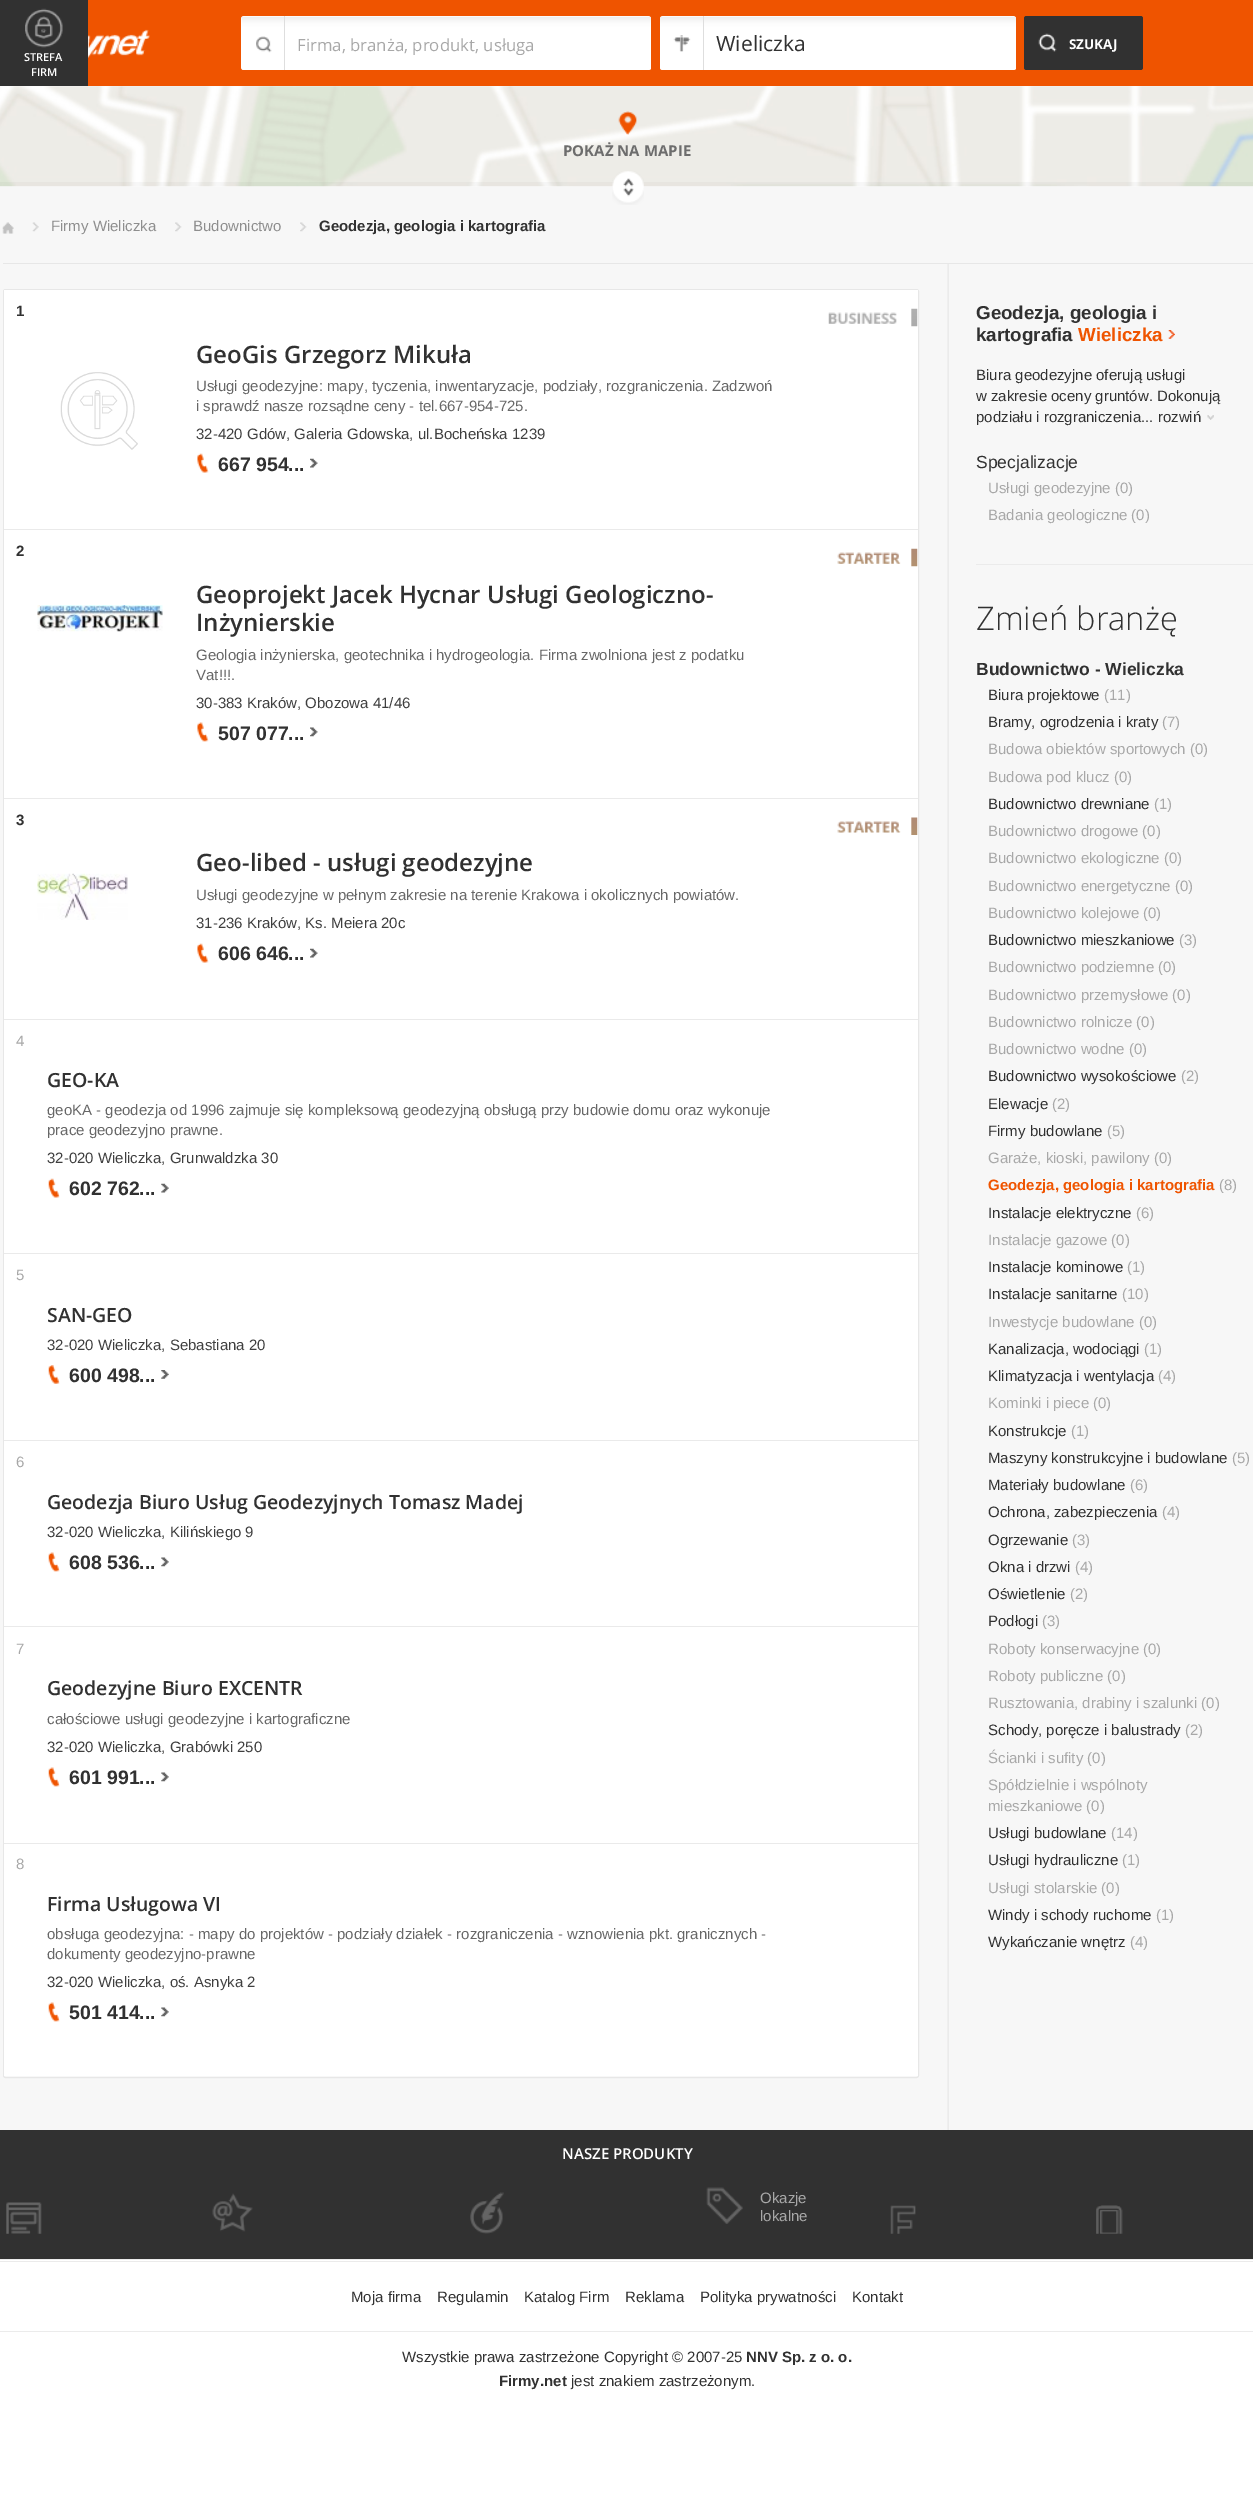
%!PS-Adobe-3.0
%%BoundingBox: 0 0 1253 2502
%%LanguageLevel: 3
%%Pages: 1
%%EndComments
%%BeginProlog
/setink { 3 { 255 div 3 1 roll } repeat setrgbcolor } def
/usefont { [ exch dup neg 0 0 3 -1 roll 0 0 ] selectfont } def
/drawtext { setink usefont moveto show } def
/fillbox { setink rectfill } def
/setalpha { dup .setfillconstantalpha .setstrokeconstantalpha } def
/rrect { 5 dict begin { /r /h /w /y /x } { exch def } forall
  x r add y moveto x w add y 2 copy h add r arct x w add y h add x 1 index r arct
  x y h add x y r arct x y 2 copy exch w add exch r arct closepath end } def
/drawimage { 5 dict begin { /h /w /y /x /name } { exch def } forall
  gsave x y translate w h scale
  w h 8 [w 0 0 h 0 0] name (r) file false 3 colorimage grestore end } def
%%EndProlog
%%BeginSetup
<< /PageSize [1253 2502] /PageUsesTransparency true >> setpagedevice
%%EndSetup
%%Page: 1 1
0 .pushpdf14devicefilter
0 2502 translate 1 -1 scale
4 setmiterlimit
0 0 1253 2502 255 255 255 fillbox
88 0 1165 86 239 84 0 fillbox
(assets/img1.rgb) 88 29 62 29 drawimage
255 255 255 setink
241 16 410 54 2.5 rrect fill
(assets/img3.rgb) 241 16 410 54 drawimage
(assets/img2.rgb) 256 36 16 17 drawimage
284 16 1 54 222 222 222 fillbox
(Firma, branża, produkt, usługa) 297 51 /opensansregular-Regular 16.75 168 168 168 drawtext
255 255 255 setink
660 16 356 54 2.5 rrect fill
(assets/img5.rgb) 660 16 356 54 drawimage
(assets/img4.rgb) 673 35 18 17 drawimage
703 16 1 54 222 222 222 fillbox
(Wieliczka) 716 51 /opensansregular-Regular 21 49 49 49 drawtext
1024 16 119 54 2.5 rrect fill
(assets/img6.rgb) 1038 33 19 19 drawimage
(SZUKAJ) 1069 49 /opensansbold-Bold 13.5 255 255 255 drawtext
0 0 88 86 49 49 49 fillbox
(assets/img7.rgb) 25 8 38 40 drawimage
(STREFA) 24 61 /OpenSans-SemiBold 11 255 255 255 drawtext
(FIRM) 31 76 /OpenSans-SemiBold 11 255 255 255 drawtext
0 186 1253 1944 247 247 247 fillbox
(assets/img8.rgb) 0 86 1253 101 drawimage
(assets/img9.rgb) 618 111 19 24 drawimage
(POKAŻ NA MAPIE) 563 156 /opensansbold-Bold 15 109 109 109 drawtext
0.03 setalpha
0 182 1253 4 0 0 0 fillbox
1 setalpha
(assets/img10.rgb) 612 171 32 34 drawimage
3 263 1250 1 231 231 231 fillbox
(assets/img11.rgb) 2 222 12 12 drawimage
(assets/img12.rgb) 32 222 7 10 drawimage
(Firmy Wieliczka) 51 231 /LiberationSans-Regular 15 142 142 142 drawtext
(assets/img13.rgb) 175 222 7 10 drawimage
(Budownictwo) 193 231 /LiberationSans-Regular 15 142 142 142 drawtext
(assets/img13.rgb) 300 222 7 10 drawimage
(Geodezja, geologia i kartografia) 319 231 /LiberationSans-Bold 15 49 49 49 drawtext
(assets/img14.rgb) 947 264 2 1866 drawimage
231 231 231 setink
3.5 289.5 915 1788 2 rrect stroke
4 290 914 239 255 255 255 fillbox
(1) 16 316 /LiberationSans-Bold 15 49 49 49 drawtext
(assets/img15.rgb) 60 372 78 78 drawimage
(assets/img16.rgb) 828 308 90 19 drawimage
(GeoGis Grzegorz Mikuła) 196 363 /OpenSans-SemiBold 24 49 49 49 drawtext
(Usługi geodezyjne: mapy, tyczenia, inwentaryzacje, podziały, rozgraniczenia. Zadzwoń) 196 391 /LiberationSans-Regular 15 103 103 103 drawtext
(i sprawdź nasze rozsądne ceny - tel.667-954-725.) 196 411 /LiberationSans-Regular 15 103 103 103 drawtext
(32-420 Gdów, Galeria Gdowska, ul.Bocheńska 1239) 196 439 /LiberationSans-Regular 15 63 63 63 drawtext
(assets/img17.rgb) 197 453 12 20 drawimage
(667 954...) 218 471 /LiberationSans-Bold 19.5 49 49 49 drawtext
(assets/img18.rgb) 310 458 8 10 drawimage
4 530 914 268 255 255 255 fillbox
4 529 914 1 234 234 234 fillbox
(2) 16 556 /LiberationSans-Bold 15 49 49 49 drawtext
(assets/img19.rgb) 37 605 126 27 drawimage
(assets/img20.rgb) 837 548 81 19 drawimage
(Geoprojekt Jacek Hycnar Usługi Geologiczno-) 196 603 /OpenSans-SemiBold 24 49 49 49 drawtext
(Inżynierskie) 196 631 /OpenSans-SemiBold 24 49 49 49 drawtext
(Geologia inżynierska, geotechnika i hydrogeologia. Firma zwolniona jest z podatku) 196 660 /LiberationSans-Regular 15 103 103 103 drawtext
(Vat!!!.) 196 680 /LiberationSans-Regular 15 103 103 103 drawtext
(30-383 Kraków, Obozowa 41/46) 196 708 /LiberationSans-Regular 15 63 63 63 drawtext
(assets/img21.rgb) 197 722 12 20 drawimage
(507 077...) 218 740 /LiberationSans-Bold 19.5 49 49 49 drawtext
(assets/img22.rgb) 310 727 8 10 drawimage
4 799 914 220 255 255 255 fillbox
4 798 914 1 234 234 234 fillbox
(3) 16 825 /LiberationSans-Bold 15 49 49 49 drawtext
(assets/img23.rgb) 37 873 91 47 drawimage
(assets/img24.rgb) 837 817 81 18 drawimage
(Geo-libed - usługi geodezyjne) 196 871 /OpenSans-SemiBold 24 49 49 49 drawtext
(Usługi geodezyjne w pełnym zakresie na terenie Krakowa i okolicznych powiatów.) 196 900 /LiberationSans-Regular 15 103 103 103 drawtext
(31-236 Kraków, Ks. Meiera 20c) 196 928 /LiberationSans-Regular 15 63 63 63 drawtext
(assets/img17.rgb) 197 943 12 20 drawimage
(606 646...) 218 960 /LiberationSans-Bold 19.5 49 49 49 drawtext
(assets/img18.rgb) 310 948 8 10 drawimage
4 1020 914 233 255 255 255 fillbox
4 1019 914 1 234 234 234 fillbox
(4) 16 1046 /LiberationSans-Regular 15 168 168 168 drawtext
(GEO-KA) 47 1087 /OpenSans-SemiBold 19.5 49 49 49 drawtext
(geoKA - geodezja od 1996 zajmuje się kompleksową geodezyjną obsługą przy budowie domu oraz wykonuje) 47 1115 /LiberationSans-Regular 15 103 103 103 drawtext
(prace geodezyjno prawne.) 47 1135 /LiberationSans-Regular 15 103 103 103 drawtext
(32-020 Wieliczka, Grunwaldzka 30) 47 1163 /LiberationSans-Regular 15 63 63 63 drawtext
(assets/img25.rgb) 48 1178 12 20 drawimage
(602 762...) 69 1195 /LiberationSans-Bold 19.5 49 49 49 drawtext
(assets/img26.rgb) 161 1183 8 10 drawimage
4 1254 914 186 255 255 255 fillbox
4 1253 914 1 234 234 234 fillbox
(5) 16 1280 /LiberationSans-Regular 15 168 168 168 drawtext
(SAN-GEO) 47 1322 /OpenSans-SemiBold 19.5 49 49 49 drawtext
(32-020 Wieliczka, Sebastiana 20) 47 1350 /LiberationSans-Regular 15 63 63 63 drawtext
(assets/img27.rgb) 48 1365 12 19 drawimage
(600 498...) 69 1382 /LiberationSans-Bold 19.5 49 49 49 drawtext
(assets/img28.rgb) 161 1370 8 9 drawimage
4 1441 914 185 255 255 255 fillbox
4 1440 914 1 234 234 234 fillbox
(6) 16 1467 /LiberationSans-Regular 15 168 168 168 drawtext
(Geodezja Biuro Usług Geodezyjnych Tomasz Madej) 47 1509 /OpenSans-SemiBold 19.5 49 49 49 drawtext
(32-020 Wieliczka, Kilińskiego 9) 47 1537 /LiberationSans-Regular 15 63 63 63 drawtext
(assets/img29.rgb) 48 1552 12 20 drawimage
(608 536...) 69 1569 /LiberationSans-Bold 19.5 49 49 49 drawtext
(assets/img30.rgb) 161 1557 8 10 drawimage
4 1627 914 216 255 255 255 fillbox
4 1626 914 1 234 234 234 fillbox
(7) 16 1654 /LiberationSans-Regular 15 168 168 168 drawtext
(Geodezyjne Biuro EXCENTR) 47 1695 /OpenSans-SemiBold 19.5 49 49 49 drawtext
(całościowe usługi geodezyjne i kartograficzne) 47 1724 /LiberationSans-Regular 15 103 103 103 drawtext
(32-020 Wieliczka, Grabówki 250) 47 1752 /LiberationSans-Regular 15 63 63 63 drawtext
(assets/img31.rgb) 48 1767 12 20 drawimage
(601 991...) 69 1784 /LiberationSans-Bold 19.5 49 49 49 drawtext
(assets/img30.rgb) 161 1772 8 10 drawimage
4 1844 914 232 255 255 255 fillbox
4 1843 914 1 234 234 234 fillbox
(8) 16 1869 /LiberationSans-Regular 15 168 168 168 drawtext
(Firma Usługowa VI) 47 1911 /OpenSans-SemiBold 19.5 49 49 49 drawtext
(obsługa geodezyjna: - mapy do projektów - podziały działek - rozgraniczenia - wznowienia pkt. granicznych -) 47 1939 /LiberationSans-Regular 15 103 103 103 drawtext
(dokumenty geodezyjno-prawne) 47 1959 /LiberationSans-Regular 15 103 103 103 drawtext
(32-020 Wieliczka, oś. Asnyka 2) 47 1987 /LiberationSans-Regular 15 63 63 63 drawtext
(assets/img31.rgb) 48 2002 12 20 drawimage
(501 414...) 69 2019 /LiberationSans-Bold 19.5 49 49 49 drawtext
(assets/img30.rgb) 161 2007 8 10 drawimage
(Geodezja, geologia i) 976 319 /LiberationSans-Bold 18.75 49 49 49 drawtext
(kartografia) 976 341 /LiberationSans-Bold 18.75 49 49 49 drawtext
(Wieliczka) 1078 341 /LiberationSans-Bold 18.75 239 84 0 drawtext
(assets/img32.rgb) 1168 330 7 9 drawimage
(Biura geodezyjne oferują usługi) 976 380 /LiberationSans-Regular 15 49 49 49 drawtext
(w zakresie oceny gruntów. Dokonują) 976 401 /LiberationSans-Regular 15 49 49 49 drawtext
(podziału i rozgraniczenia... rozwiń) 976 422 /LiberationSans-Regular 15 49 49 49 drawtext
(assets/img33.rgb) 1207 415 7 5 drawimage
(Specjalizacje) 976 468 /LiberationSans-Regular 17.5 49 49 49 drawtext
(Usługi geodezyjne \(0\)) 988 493 /LiberationSans-Regular 15 168 168 168 drawtext
(Badania geologiczne \(0\)) 988 520 /LiberationSans-Regular 15 168 168 168 drawtext
976 564 277 1 235 235 235 fillbox
(Zmień branżę) 976 630 /OpenSans-Light 32.5 49 49 49 drawtext
(Budownictwo - Wieliczka) 976 675 /LiberationSans-Bold 17.5 49 49 49 drawtext
(Biura projektowe) 988 700 /LiberationSans-Regular 15 49 49 49 drawtext
(\(11\)) 1104 700 /LiberationSans-Regular 15 168 168 168 drawtext
(Bramy, ogrodzenia i kraty) 988 727 /LiberationSans-Regular 15 49 49 49 drawtext
(\(7\)) 1162 727 /LiberationSans-Regular 15 168 168 168 drawtext
(Budowa obiektów sportowych \(0\)) 988 754 /LiberationSans-Regular 15 168 168 168 drawtext
(Budowa pod klucz \(0\)) 988 782 /LiberationSans-Regular 15 168 168 168 drawtext
(Budownictwo drewniane) 988 809 /LiberationSans-Regular 15 49 49 49 drawtext
(\(1\)) 1154 809 /LiberationSans-Regular 15 168 168 168 drawtext
(Budownictwo drogowe \(0\)) 988 836 /LiberationSans-Regular 15 168 168 168 drawtext
(Budownictwo ekologiczne \(0\)) 988 863 /LiberationSans-Regular 15 168 168 168 drawtext
(Budownictwo energetyczne \(0\)) 988 891 /LiberationSans-Regular 15 168 168 168 drawtext
(Budownictwo kolejowe \(0\)) 988 918 /LiberationSans-Regular 15 168 168 168 drawtext
(Budownictwo mieszkaniowe) 988 945 /LiberationSans-Regular 15 49 49 49 drawtext
(\(3\)) 1179 945 /LiberationSans-Regular 15 168 168 168 drawtext
(Budownictwo podziemne \(0\)) 988 972 /LiberationSans-Regular 15 168 168 168 drawtext
(Budownictwo przemysłowe \(0\)) 988 1000 /LiberationSans-Regular 15 168 168 168 drawtext
(Budownictwo rolnicze \(0\)) 988 1027 /LiberationSans-Regular 15 168 168 168 drawtext
(Budownictwo wodne \(0\)) 988 1054 /LiberationSans-Regular 15 168 168 168 drawtext
(Budownictwo wysokościowe) 988 1081 /LiberationSans-Regular 15 49 49 49 drawtext
(\(2\)) 1181 1081 /LiberationSans-Regular 15 168 168 168 drawtext
(Elewacje) 988 1109 /LiberationSans-Regular 15 49 49 49 drawtext
(\(2\)) 1052 1109 /LiberationSans-Regular 15 168 168 168 drawtext
(Firmy budowlane) 988 1136 /LiberationSans-Regular 15 49 49 49 drawtext
(\(5\)) 1107 1136 /LiberationSans-Regular 15 168 168 168 drawtext
(Garaże, kioski, pawilony \(0\)) 988 1163 /LiberationSans-Regular 15 168 168 168 drawtext
(Geodezja, geologia i kartografia) 988 1190 /LiberationSans-Bold 15 239 84 0 drawtext
(\(8\)) 1219 1190 /LiberationSans-Regular 15 168 168 168 drawtext
(Instalacje elektryczne) 988 1218 /LiberationSans-Regular 15 49 49 49 drawtext
(\(6\)) 1136 1218 /LiberationSans-Regular 15 168 168 168 drawtext
(Instalacje gazowe \(0\)) 988 1245 /LiberationSans-Regular 15 168 168 168 drawtext
(Instalacje kominowe) 988 1272 /LiberationSans-Regular 15 49 49 49 drawtext
(\(1\)) 1127 1272 /LiberationSans-Regular 15 168 168 168 drawtext
(Instalacje sanitarne) 988 1299 /LiberationSans-Regular 15 49 49 49 drawtext
(\(10\)) 1122 1299 /LiberationSans-Regular 15 168 168 168 drawtext
(Inwestycje budowlane \(0\)) 988 1327 /LiberationSans-Regular 15 168 168 168 drawtext
(Kanalizacja, wodociągi) 988 1354 /LiberationSans-Regular 15 49 49 49 drawtext
(\(1\)) 1144 1354 /LiberationSans-Regular 15 168 168 168 drawtext
(Klimatyzacja i wentylacja) 988 1381 /LiberationSans-Regular 15 49 49 49 drawtext
(\(4\)) 1158 1381 /LiberationSans-Regular 15 168 168 168 drawtext
(Kominki i piece \(0\)) 988 1408 /LiberationSans-Regular 15 168 168 168 drawtext
(Konstrukcje) 988 1436 /LiberationSans-Regular 15 49 49 49 drawtext
(\(1\)) 1071 1436 /LiberationSans-Regular 15 168 168 168 drawtext
(Maszyny konstrukcyjne i budowlane) 988 1463 /LiberationSans-Regular 15 49 49 49 drawtext
(\(5\)) 1232 1463 /LiberationSans-Regular 15 168 168 168 drawtext
(Materiały budowlane) 988 1490 /LiberationSans-Regular 15 49 49 49 drawtext
(\(6\)) 1130 1490 /LiberationSans-Regular 15 168 168 168 drawtext
(Ochrona, zabezpieczenia) 988 1517 /LiberationSans-Regular 15 49 49 49 drawtext
(\(4\)) 1162 1517 /LiberationSans-Regular 15 168 168 168 drawtext
(Ogrzewanie) 988 1545 /LiberationSans-Regular 15 49 49 49 drawtext
(\(3\)) 1072 1545 /LiberationSans-Regular 15 168 168 168 drawtext
(Okna i drzwi) 988 1572 /LiberationSans-Regular 15 49 49 49 drawtext
(\(4\)) 1075 1572 /LiberationSans-Regular 15 168 168 168 drawtext
(Oświetlenie) 988 1599 /LiberationSans-Regular 15 49 49 49 drawtext
(\(2\)) 1070 1599 /LiberationSans-Regular 15 168 168 168 drawtext
(Podłogi) 988 1626 /LiberationSans-Regular 15 49 49 49 drawtext
(\(3\)) 1042 1626 /LiberationSans-Regular 15 168 168 168 drawtext
(Roboty konserwacyjne \(0\)) 988 1654 /LiberationSans-Regular 15 168 168 168 drawtext
(Roboty publiczne \(0\)) 988 1681 /LiberationSans-Regular 15 168 168 168 drawtext
(Rusztowania, drabiny i szalunki \(0\)) 988 1708 /LiberationSans-Regular 15 168 168 168 drawtext
(Schody, poręcze i balustrady) 988 1735 /LiberationSans-Regular 15 49 49 49 drawtext
(\(2\)) 1185 1735 /LiberationSans-Regular 15 168 168 168 drawtext
(Ścianki i sufity \(0\)) 988 1763 /LiberationSans-Regular 15 168 168 168 drawtext
(Spółdzielnie i wspólnoty) 988 1790 /LiberationSans-Regular 15 168 168 168 drawtext
(mieszkaniowe \(0\)) 988 1811 /LiberationSans-Regular 15 168 168 168 drawtext
(Usługi budowlane) 988 1838 /LiberationSans-Regular 15 49 49 49 drawtext
(\(14\)) 1111 1838 /LiberationSans-Regular 15 168 168 168 drawtext
(Usługi hydrauliczne) 988 1865 /LiberationSans-Regular 15 49 49 49 drawtext
(\(1\)) 1122 1865 /LiberationSans-Regular 15 168 168 168 drawtext
(Usługi stolarskie \(0\)) 988 1893 /LiberationSans-Regular 15 168 168 168 drawtext
(Windy i schody ruchome) 988 1920 /LiberationSans-Regular 15 49 49 49 drawtext
(\(1\)) 1156 1920 /LiberationSans-Regular 15 168 168 168 drawtext
(Wykańczanie wnętrz) 988 1947 /LiberationSans-Regular 15 49 49 49 drawtext
(\(4\)) 1130 1947 /LiberationSans-Regular 15 168 168 168 drawtext
0 2130 1253 129 49 49 49 fillbox
(NASZE PRODUKTY) 562 2159 /OpenSans-SemiBold 15 255 255 255 drawtext
(assets/img34.rgb) 6 2202 36 32 drawimage
(assets/img35.rgb) 212 2193 41 39 drawimage
(assets/img36.rgb) 470 2192 34 42 drawimage
(assets/img37.rgb) 706 2187 37 37 drawimage
(Okazje) 760 2203 /LiberationSans-Regular 15 168 168 168 drawtext
(lokalne) 760 2221 /LiberationSans-Regular 15 168 168 168 drawtext
(assets/img38.rgb) 890 2205 26 29 drawimage
(assets/img39.rgb) 1096 2205 27 29 drawimage
0 2259 1253 1 235 235 235 fillbox
0 2261 1253 1 235 235 235 fillbox
(Moja firma) 351 2302 /LiberationSans-Regular 15 49 49 49 drawtext
(Regulamin) 437 2302 /LiberationSans-Regular 15 49 49 49 drawtext
(Katalog Firm) 524 2302 /LiberationSans-Regular 15 49 49 49 drawtext
(Reklama) 625 2302 /LiberationSans-Regular 15 49 49 49 drawtext
(Polityka prywatności) 700 2302 /LiberationSans-Regular 15 49 49 49 drawtext
(Kontakt) 852 2302 /LiberationSans-Regular 15 49 49 49 drawtext
0 2331 1253 1 235 235 235 fillbox
(Wszystkie prawa zastrzeżone Copyright © 2007-25) 402 2362 /LiberationSans-Regular 15 49 49 49 drawtext
(NNV Sp. z o. o.) 746 2362 /LiberationSans-Bold 15 49 49 49 drawtext
(Firmy.net) 499 2386 /LiberationSans-Bold 15 49 49 49 drawtext
(jest znakiem zastrzeżonym.) 571 2386 /LiberationSans-Regular 15 49 49 49 drawtext
.poppdf14devicefilter showpage
%%EOF
